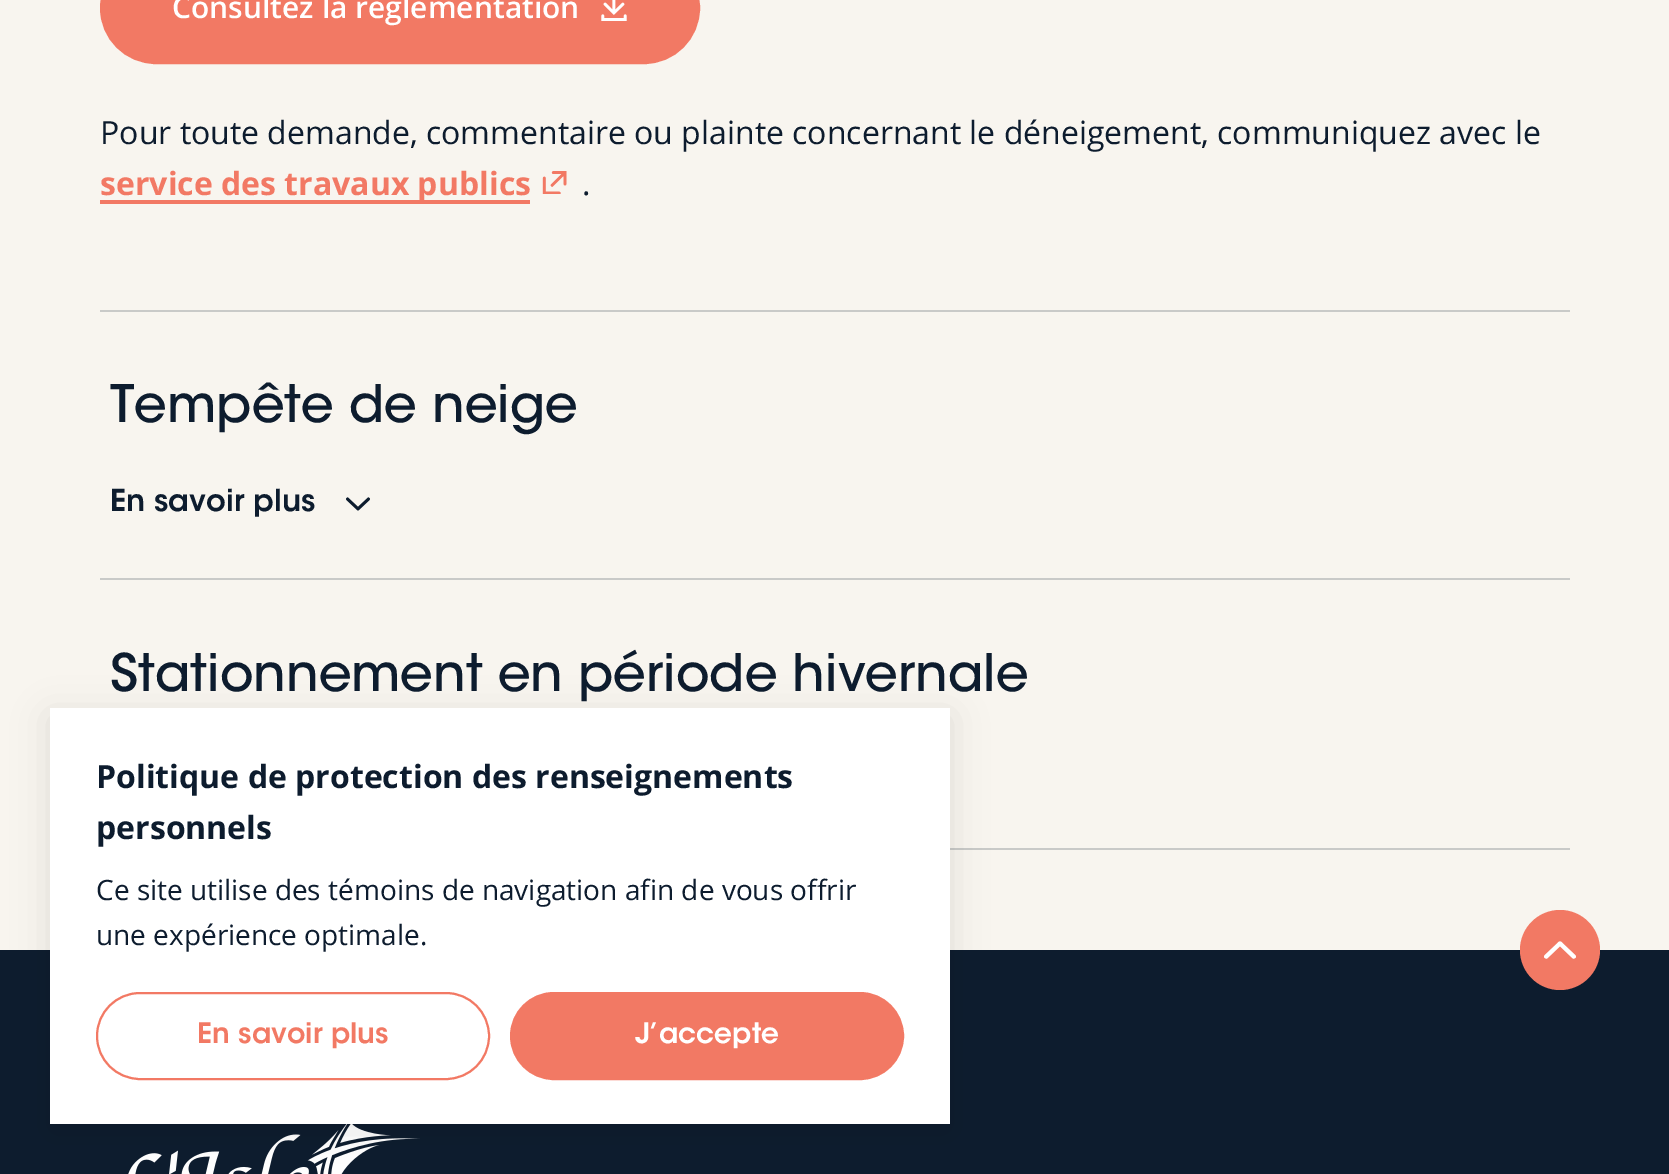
%!PS-Adobe-3.0
%%BoundingBox: 0 0 1669 1174
%%LanguageLevel: 3
%%Pages: 1
%%EndComments
%%BeginProlog
/setink { 3 { 255 div 3 1 roll } repeat setrgbcolor } def
/usefont { [ exch dup neg 0 0 3 -1 roll 0 0 ] selectfont } def
/drawtext { setink usefont moveto show } def
/fillbox { setink rectfill } def
/setalpha { dup .setfillconstantalpha .setstrokeconstantalpha } def
/rrect { 5 dict begin { /r /h /w /y /x } { exch def } forall
  x r add y moveto x w add y 2 copy h add r arct x w add y h add x 1 index r arct
  x y h add x y r arct x y 2 copy exch w add exch r arct closepath end } def
/softshadow { 12 dict begin { /a /b /q /h /w /y /x } { exch def } forall gsave /was 0 def
  9 -2 -9 { dup b mul 4 div /e exch def 1 sub .425 mul 2.718 exch exp 1 add a .99 .min exch div /now exch def
    1 1 now sub 1 was sub div sub setalpha /was now def
    w h .min e 2 mul add 0 gt { x e sub y e sub w e 2 mul add h e 2 mul add
      q e add b .6 mul add w h .min 2 div e add .min 0 .max rrect fill } if } for grestore end } def
/drawimage { 5 dict begin { /h /w /y /x /name } { exch def } forall
  gsave x y translate w h scale
  w h 8 [w 0 0 h 0 0] name (r) file false 3 colorimage grestore end } def
%%EndProlog
%%BeginSetup
<< /PageSize [1669 1174] /PageUsesTransparency true >> setpagedevice
%%EndSetup
%%Page: 1 1
0 .pushpdf14devicefilter
0 1174 translate 1 -1 scale
4 setmiterlimit
0 0 1669 1174 248 245 239 fillbox
242 121 100 setink
101 -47 598 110 55 rrect gsave fill grestore
2 setlinewidth
stroke
(Consultez la règlementation) 172 18 /OpenSans-SemiBold 30 255 255 255 drawtext
(assets/img1.rgb) 601 0 26 21 drawimage
(Pour toute demande, commentaire ou plainte concernant le déneigement, communiquez avec le) 100 144 /OpenSans-Regular 32 13 28 46 drawtext
100 200 430 4 242 121 100 fillbox
(service des travaux publics) 100 195 /OpenSans-Bold 32 242 121 100 drawtext
(assets/img2.rgb) 542 171 25 23 drawimage
(.) 582 195 /OpenSans-Regular 32 13 28 46 drawtext
100 310 1470 2 201 202 200 fillbox
100 578 1470 2 201 202 200 fillbox
(Tempête de neige) 110 422 /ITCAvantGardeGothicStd-Medium 51.4 13 28 46 drawtext
(En savoir plus) 110 511 /ITCAvantGardeGothicStd-SemiBold 30 13 28 46 drawtext
(assets/img3.rgb) 346 497 24 14 drawimage
950 848 620 2 201 202 200 fillbox
(Stationnement en période hivernale) 110 691 /ITCAvantGardeGothicStd-Medium 51.4 13 28 46 drawtext
0 950 1669 224 13 28 46 fillbox
242 121 100 setink
1560 990 moveto 1538 990 1520 972 1520 950 curveto 1520 928 1538 910 1560 910 curveto 1582 910 1600 928 1600 950 curveto 1600 972 1582 990 1560 990 curveto closepath fill
(assets/img4.rgb) 1544 941 32 18 drawimage
(assets/img5.rgb) 128 1124 292 50 drawimage
0 0 0 setink
50 716 900 416 0 18 0.1 softshadow
50 708 900 416 255 255 255 fillbox
(Politique de protection des renseignements) 96 788 /OpenSans-Bold 32 13 28 46 drawtext
(personnels) 96 839 /OpenSans-Bold 32 13 28 46 drawtext
(Ce site utilise des témoins de navigation afin de vous offrir) 96 900 /OpenSans-Regular 28 13 28 46 drawtext
(une expérience optimale.) 96 945 /OpenSans-Regular 28 13 28 46 drawtext
242 121 100 setink
97 993 392 86 43 rrect stroke
(En savoir plus) 197 1043 /ITCAvantGardeGothicStd-SemiBold 28 242 121 100 drawtext
511 993 392 86 43 rrect gsave fill grestore
stroke
(J’accepte) 635 1043 /ITCAvantGardeGothicStd-SemiBold 28 255 255 255 drawtext
.poppdf14devicefilter showpage
%%EOF
